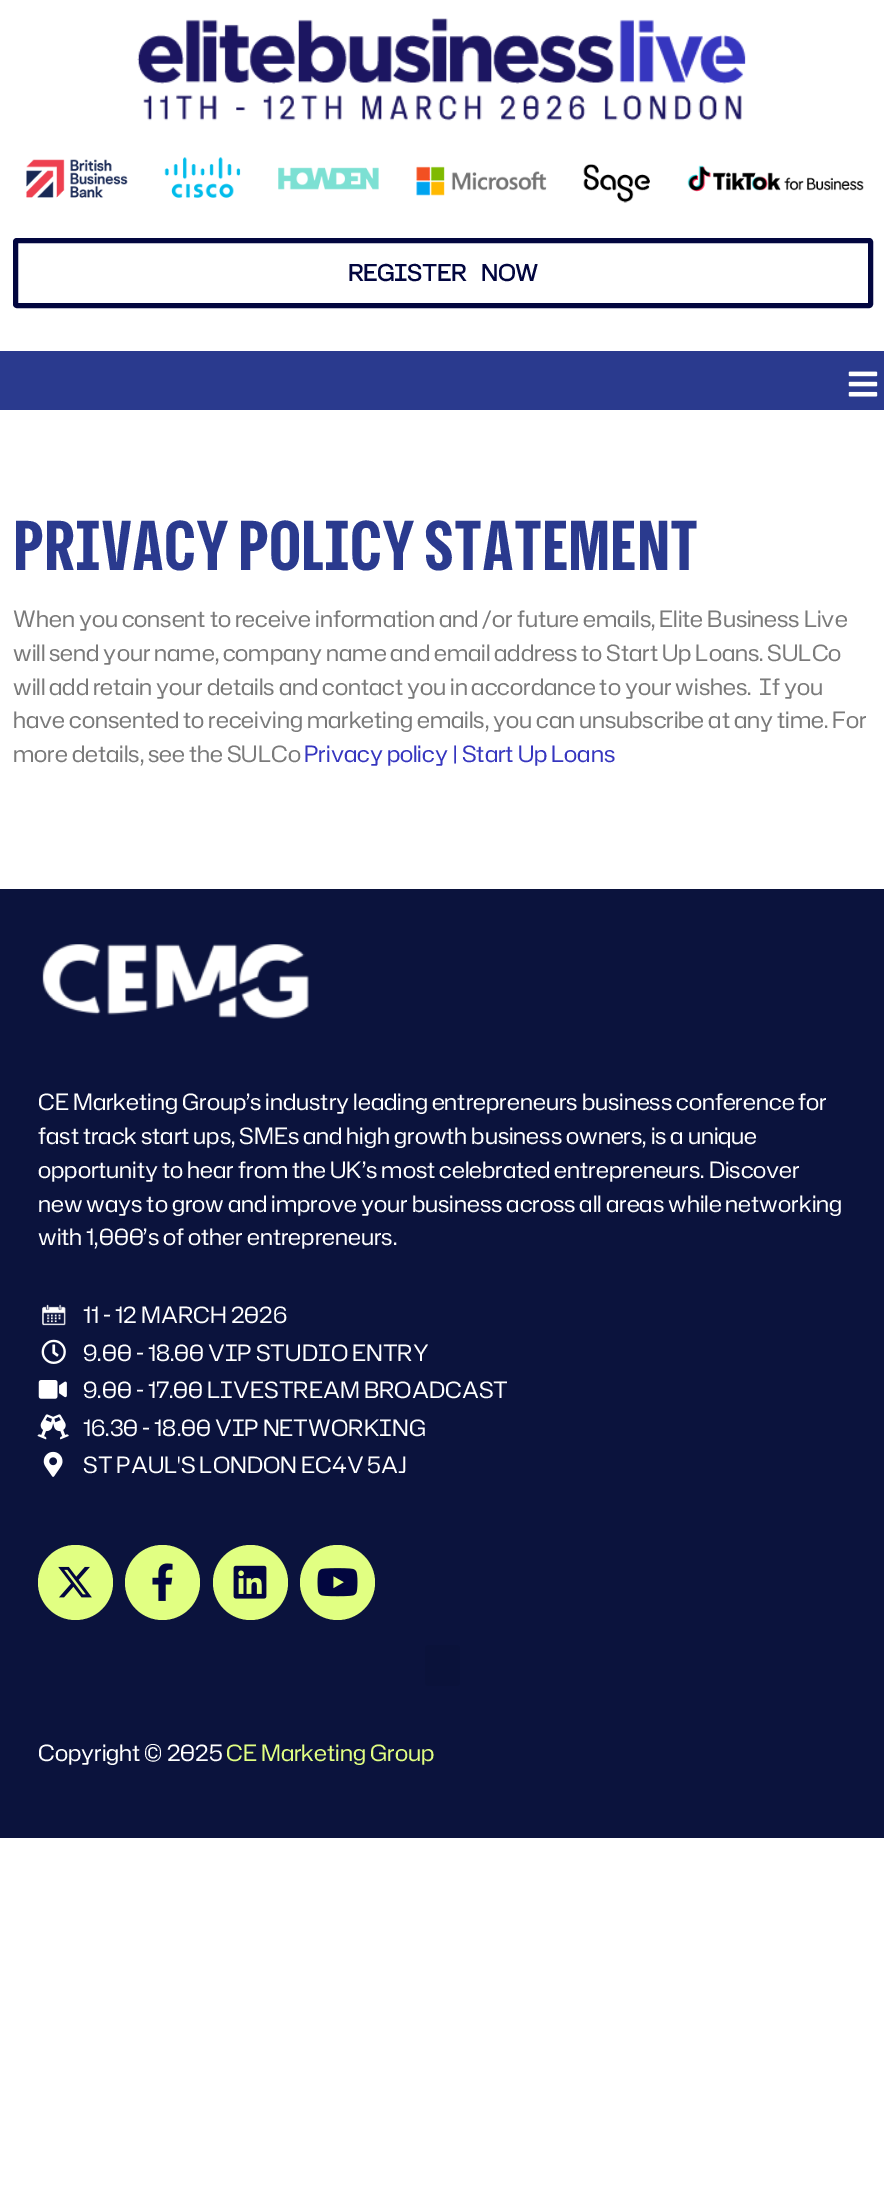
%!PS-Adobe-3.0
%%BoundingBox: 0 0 884 2205
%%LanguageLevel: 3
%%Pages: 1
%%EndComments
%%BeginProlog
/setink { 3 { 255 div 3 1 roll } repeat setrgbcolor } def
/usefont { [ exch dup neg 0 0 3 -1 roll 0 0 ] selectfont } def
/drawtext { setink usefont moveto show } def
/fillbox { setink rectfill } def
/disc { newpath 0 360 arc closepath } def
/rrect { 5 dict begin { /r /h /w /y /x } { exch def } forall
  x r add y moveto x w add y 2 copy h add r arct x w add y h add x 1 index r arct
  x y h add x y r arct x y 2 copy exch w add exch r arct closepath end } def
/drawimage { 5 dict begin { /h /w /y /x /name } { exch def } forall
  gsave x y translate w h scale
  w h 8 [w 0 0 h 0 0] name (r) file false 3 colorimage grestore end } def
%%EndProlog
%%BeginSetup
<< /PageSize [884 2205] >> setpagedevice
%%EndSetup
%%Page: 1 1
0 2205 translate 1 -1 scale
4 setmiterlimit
0 0 884 2205 255 255 255 fillbox
(assets/img1.rgb) 137 18 609 103 drawimage
(assets/img2.rgb) 26 157 838 46 drawimage
2 6 63 setink
5 setlinewidth
15.5 240.5 855 65 1.5 rrect stroke
/HubotSans-Bold 22.5 usefont
348 281 moveto 11 0 32 (REGISTER NOW) widthshow
0 351 884 59 42 58 142 fillbox
(assets/img3.rgb) 848 371 30 26 drawimage
(PRIVACY POLICY STATEMENT) 13 570 /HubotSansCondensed-Bold 67.5 42 58 142 drawtext
(When you consent to receive information and /or future emails, Elite Business Live) 13 627 /HubotSans-Regular 22.5 122 122 122 drawtext
(will send your name, company name and email address to Start Up Loans. SULCo) 13 661 /HubotSans-Regular 22.5 122 122 122 drawtext
(will add retain your details and contact you in accordance to your wishes.  If you) 13 695 /HubotSans-Regular 22.5 122 122 122 drawtext
(have consented to receiving marketing emails, you can unsubscribe at any time. For) 13 728 /HubotSans-Regular 22.5 122 122 122 drawtext
(more details, see the SULCo) 13 762 /HubotSans-Regular 22.5 122 122 122 drawtext
(Privacy policy | Start Up Loans) 304 762 /HubotSans-Regular 22.5 54 54 191 drawtext
0 889 884 949 11 19 61 fillbox
(assets/img4.rgb) 42 944 267 75 drawimage
(CE Marketing Group’s industry leading entrepreneurs business conference for) 38 1110 /HubotSans-Regular 22.5 255 255 255 drawtext
(fast track start ups, SMEs and high growth business owners, is a unique) 38 1144 /HubotSans-Regular 22.5 255 255 255 drawtext
(opportunity to hear from the UK’s most celebrated entrepreneurs. Discover) 38 1178 /HubotSans-Regular 22.5 255 255 255 drawtext
(new ways to grow and improve your business across all areas while networking) 38 1212 /HubotSans-Regular 22.5 255 255 255 drawtext
(with 1,000’s of other entrepreneurs.) 38 1245 /HubotSans-Regular 22.5 255 255 255 drawtext
(assets/img5.rgb) 42 1304 24 22 drawimage
(11 - 12 MARCH 2026) 83 1323 /HubotSans-Regular 22.5 255 255 255 drawtext
(assets/img6.rgb) 41 1339 25 25 drawimage
(9.00 - 18.00 VIP STUDIO ENTRY) 83 1361 /HubotSans-Regular 22.5 255 255 255 drawtext
(assets/img7.rgb) 38 1380 29 19 drawimage
(9.00 - 17.00 LIVESTREAM BROADCAST) 83 1398 /HubotSans-Regular 22.5 255 255 255 drawtext
(assets/img8.rgb) 37 1414 32 26 drawimage
(16.30 - 18.00 VIP NETWORKING) 83 1436 /HubotSans-Regular 22.5 255 255 255 drawtext
(assets/img9.rgb) 43 1451 20 26 drawimage
(ST PAUL'S LONDON EC4V 5AJ) 83 1473 /HubotSans-Regular 22.5 255 255 255 drawtext
225 255 130 setink
75.5 1582.5 37.5 disc fill
(assets/img10.rgb) 58 1566 34 32 drawimage
162.5 1582.5 37.5 disc fill
(assets/img11.rgb) 152 1563 21 38 drawimage
250.5 1582.5 37.5 disc fill
(assets/img12.rgb) 233 1565 34 34 drawimage
337.5 1582.5 37.5 disc fill
(assets/img13.rgb) 317 1568 41 29 drawimage
10 18 58 setink
425 1645 35 41 4 rrect fill
(Copyright © 2025) 38 1761 /HubotSans-Regular 22.5 255 255 255 drawtext
(CE Marketing Group) 226 1761 /HubotSans-Regular 22.5 225 255 130 drawtext
showpage
%%EOF
